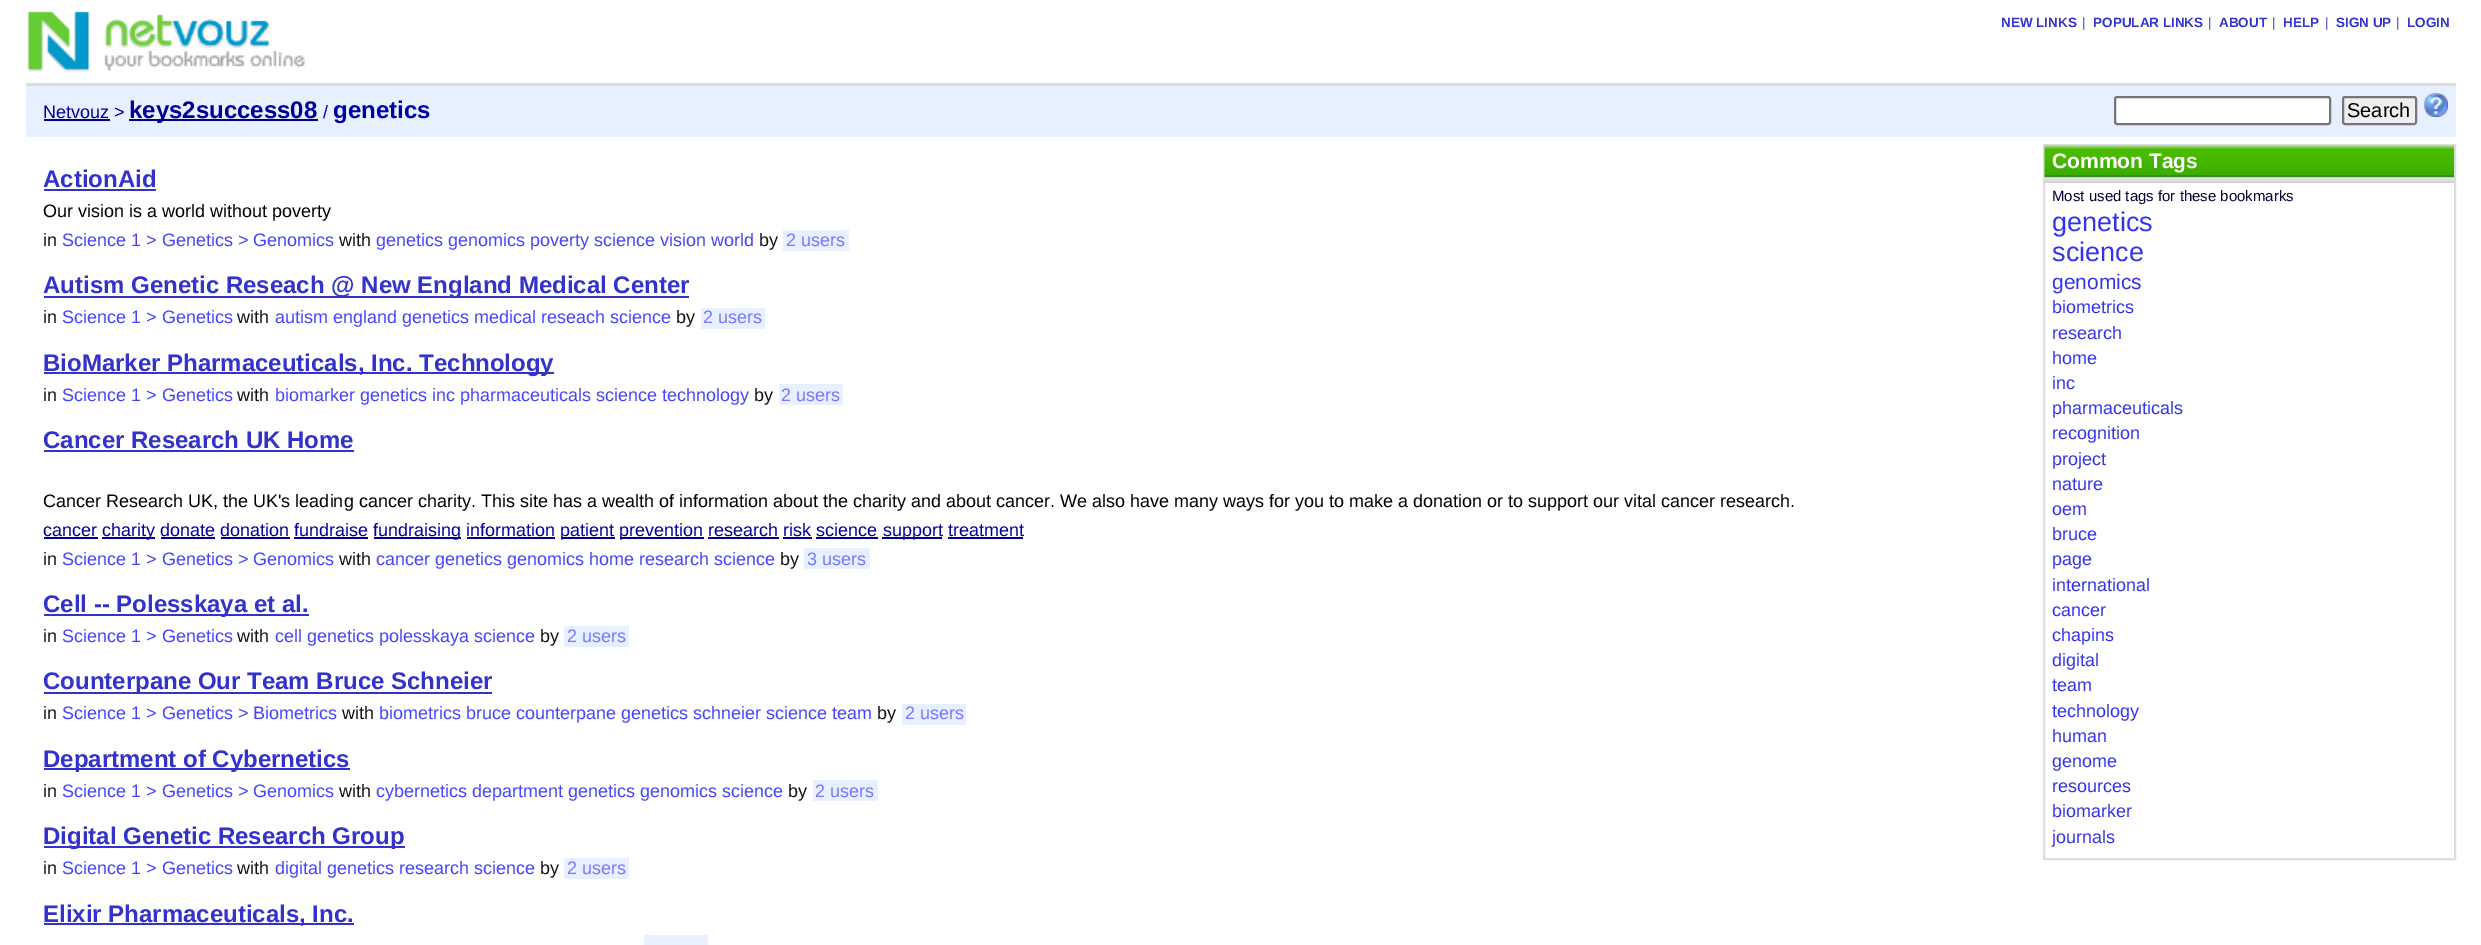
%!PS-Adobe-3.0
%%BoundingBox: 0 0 2481 945
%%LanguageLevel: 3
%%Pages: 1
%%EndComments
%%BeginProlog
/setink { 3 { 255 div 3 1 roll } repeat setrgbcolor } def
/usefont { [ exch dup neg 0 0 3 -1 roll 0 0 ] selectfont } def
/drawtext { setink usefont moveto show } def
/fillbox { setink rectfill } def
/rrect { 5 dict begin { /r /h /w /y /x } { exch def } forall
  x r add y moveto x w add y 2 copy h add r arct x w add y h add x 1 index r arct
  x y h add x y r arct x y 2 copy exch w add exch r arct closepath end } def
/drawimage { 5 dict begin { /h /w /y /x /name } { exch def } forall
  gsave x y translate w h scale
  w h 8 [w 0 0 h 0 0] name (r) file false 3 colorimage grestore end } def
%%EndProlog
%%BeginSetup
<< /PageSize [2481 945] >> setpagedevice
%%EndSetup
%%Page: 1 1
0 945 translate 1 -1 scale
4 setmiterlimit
0 0 2481 945 255 255 255 fillbox
26 83 2430 3 221 221 221 fillbox
(assets/img1.rgb) 27 11 278 61 drawimage
(NEW LINKS) 2001 27 /LiberationSans-Bold 13.5 51 51 204 drawtext
(|) 2082 27 /LiberationSans-Regular 13.5 51 51 204 drawtext
(POPULAR LINKS) 2093 27 /LiberationSans-Bold 13.5 51 51 204 drawtext
(|) 2208 27 /LiberationSans-Regular 13.5 51 51 204 drawtext
(ABOUT) 2219 27 /LiberationSans-Bold 13.5 51 51 204 drawtext
(|) 2272 27 /LiberationSans-Regular 13.5 51 51 204 drawtext
(HELP) 2283 27 /LiberationSans-Bold 13.5 51 51 204 drawtext
(|) 2325 27 /LiberationSans-Regular 13.5 51 51 204 drawtext
(SIGN UP) 2336 27 /LiberationSans-Bold 13.5 51 51 204 drawtext
(|) 2396 27 /LiberationSans-Regular 13.5 51 51 204 drawtext
(LOGIN) 2407 27 /LiberationSans-Bold 13.5 51 51 204 drawtext
26 86 2430 51 230 240 255 fillbox
(Netvouz) 43 118 /LiberationSans-Regular 18 0 0 153 drawtext
44 119 66 2 0 0 153 fillbox
(>) 114 118 /LiberationSans-Regular 18 0 0 170 drawtext
129 119 189 2 0 0 153 fillbox
(keys2success08) 129 118 /LiberationSans-Bold 24 0 0 153 drawtext
(/) 323 118 /LiberationSans-Regular 18 0 0 170 drawtext
(genetics) 333 118 /LiberationSans-Bold 24 0 0 170 drawtext
255 255 255 setink
2115 97 215 27 2 rrect gsave fill grestore
118 118 118 setink
2 setlinewidth
stroke
239 239 239 setink
2343 97 73 27 2 rrect gsave fill grestore
118 118 118 setink
stroke
(Search) 2347 117 /LiberationSans-Regular 20 0 0 0 drawtext
(assets/img2.rgb) 2424 93 24 24 drawimage
(ActionAid) 43 187 /LiberationSans-Bold 24 51 51 204 drawtext
44 189 112 2 51 51 204 fillbox
(Our vision is a world without poverty) 43 217 /LiberationSans-Regular 18 0 0 0 drawtext
(in) 43 246 /LiberationSans-Regular 18 17 17 17 drawtext
(Science 1 > Genetics > Genomics) 62 246 /LiberationSans-Regular 18 68 68 255 drawtext
(with) 339 246 /LiberationSans-Regular 18 17 17 17 drawtext
(genetics genomics poverty science vision world) 376 246 /LiberationSans-Regular 18 68 68 255 drawtext
(by) 759 246 /LiberationSans-Regular 18 17 17 17 drawtext
783 230 66 21 230 240 255 fillbox
(2 users) 786 246 /LiberationSans-Regular 18 119 119 255 drawtext
44 296 645 2 51 51 204 fillbox
(Autism Genetic Reseach @ New England Medical Center) 43 293 /LiberationSans-Bold 24 51 51 204 drawtext
(in) 43 323 /LiberationSans-Regular 18 17 17 17 drawtext
(Science 1 > Genetics) 62 323 /LiberationSans-Regular 18 68 68 255 drawtext
(with) 237 323 /LiberationSans-Regular 18 17 17 17 drawtext
(autism england genetics medical reseach science) 275 323 /LiberationSans-Regular 18 68 68 255 drawtext
(by) 676 323 /LiberationSans-Regular 18 17 17 17 drawtext
701 308 64 21 230 240 255 fillbox
(2 users) 703 323 /LiberationSans-Regular 18 119 119 255 drawtext
44 372 510 2 51 51 204 fillbox
(BioMarker Pharmaceuticals, Inc. Technology) 43 371 /LiberationSans-Bold 24 51 51 204 drawtext
(in) 43 401 /LiberationSans-Regular 18 17 17 17 drawtext
(Science 1 > Genetics) 62 401 /LiberationSans-Regular 18 68 68 255 drawtext
(with) 237 401 /LiberationSans-Regular 18 17 17 17 drawtext
(biomarker genetics inc pharmaceuticals science technology) 275 401 /LiberationSans-Regular 18 68 68 255 drawtext
(by) 754 401 /LiberationSans-Regular 18 17 17 17 drawtext
779 384 64 21 230 240 255 fillbox
(2 users) 781 401 /LiberationSans-Regular 18 119 119 255 drawtext
(Cancer Research UK Home) 43 448 /LiberationSans-Bold 24 51 51 204 drawtext
44 450 310 2 51 51 204 fillbox
(Cancer Research UK, the UK's leading cancer charity. This site has a wealth of information about the charity and about cancer. We also have many ways for you to make a donation or to support our vital cancer research.) 43 507 /LiberationSans-Regular 18 0 0 0 drawtext
(cancer) 43 536 /LiberationSans-Regular 18 0 0 153 drawtext
44 537 54 2 0 0 153 fillbox
102 537 53 2 0 0 153 fillbox
(charity donate donation fundraise) 102 536 /LiberationSans-Regular 18 0 0 153 drawtext
374 537 87 2 0 0 153 fillbox
(fundraising information) 373 536 /LiberationSans-Regular 18 0 0 153 drawtext
561 537 54 2 0 0 153 fillbox
(patient) 560 536 /LiberationSans-Regular 18 0 0 153 drawtext
620 537 84 2 0 0 153 fillbox
(prevention research risk science) 619 536 /LiberationSans-Regular 18 0 0 153 drawtext
882 537 60 2 0 0 153 fillbox
(support treatment) 883 536 /LiberationSans-Regular 18 0 0 153 drawtext
161 537 54 2 0 0 153 fillbox
221 537 69 2 0 0 153 fillbox
294 537 74 2 0 0 153 fillbox
467 537 88 2 0 0 153 fillbox
708 537 71 2 0 0 153 fillbox
783 537 29 2 0 0 153 fillbox
816 537 62 2 0 0 153 fillbox
948 537 75 2 0 0 153 fillbox
(in) 43 565 /LiberationSans-Regular 18 17 17 17 drawtext
(Science 1 > Genetics > Genomics) 62 565 /LiberationSans-Regular 18 68 68 255 drawtext
(with) 339 565 /LiberationSans-Regular 18 17 17 17 drawtext
(cancer genetics genomics home research science) 376 565 /LiberationSans-Regular 18 68 68 255 drawtext
(by) 780 565 /LiberationSans-Regular 18 17 17 17 drawtext
804 548 66 21 230 240 255 fillbox
(3 users) 807 565 /LiberationSans-Regular 18 119 119 255 drawtext
44 614 265 2 51 51 204 fillbox
(Cell -- Polesskaya et al.) 43 612 /LiberationSans-Bold 24 51 51 204 drawtext
(in) 43 642 /LiberationSans-Regular 18 17 17 17 drawtext
(Science 1 > Genetics) 62 642 /LiberationSans-Regular 18 68 68 255 drawtext
(with) 237 642 /LiberationSans-Regular 18 17 17 17 drawtext
(cell genetics polesskaya science) 275 642 /LiberationSans-Regular 18 68 68 255 drawtext
(by) 540 642 /LiberationSans-Regular 18 17 17 17 drawtext
564 626 65 21 230 240 255 fillbox
(2 users) 567 642 /LiberationSans-Regular 18 119 119 255 drawtext
44 692 448 2 51 51 204 fillbox
(Counterpane Our Team Bruce Schneier) 43 689 /LiberationSans-Bold 24 51 51 204 drawtext
(in) 43 719 /LiberationSans-Regular 18 17 17 17 drawtext
(Science 1 > Genetics > Biometrics) 62 719 /LiberationSans-Regular 18 68 68 255 drawtext
(with) 342 719 /LiberationSans-Regular 18 17 17 17 drawtext
(biometrics bruce counterpane genetics schneier science team) 379 719 /LiberationSans-Regular 18 68 68 255 drawtext
(by) 877 719 /LiberationSans-Regular 18 17 17 17 drawtext
902 704 64 21 230 240 255 fillbox
(2 users) 905 719 /LiberationSans-Regular 18 119 119 255 drawtext
44 768 306 2 51 51 204 fillbox
(Department of Cybernetics) 43 767 /LiberationSans-Bold 24 51 51 204 drawtext
(in) 43 797 /LiberationSans-Regular 18 17 17 17 drawtext
(Science 1 > Genetics > Genomics) 62 797 /LiberationSans-Regular 18 68 68 255 drawtext
(with) 339 797 /LiberationSans-Regular 18 17 17 17 drawtext
(cybernetics department genetics genomics science) 376 797 /LiberationSans-Regular 18 68 68 255 drawtext
(by) 788 797 /LiberationSans-Regular 18 17 17 17 drawtext
813 780 65 21 230 240 255 fillbox
(2 users) 815 797 /LiberationSans-Regular 18 119 119 255 drawtext
44 846 361 2 51 51 204 fillbox
(Digital Genetic Research Group) 43 844 /LiberationSans-Bold 24 51 51 204 drawtext
(in) 43 874 /LiberationSans-Regular 18 17 17 17 drawtext
(Science 1 > Genetics) 62 874 /LiberationSans-Regular 18 68 68 255 drawtext
(with) 237 874 /LiberationSans-Regular 18 17 17 17 drawtext
(digital genetics research science) 275 874 /LiberationSans-Regular 18 68 68 255 drawtext
(by) 540 874 /LiberationSans-Regular 18 17 17 17 drawtext
564 858 65 21 230 240 255 fillbox
(2 users) 567 874 /LiberationSans-Regular 18 119 119 255 drawtext
44 923 310 2 51 51 204 fillbox
(Elixir Pharmaceuticals, Inc.) 43 922 /LiberationSans-Bold 24 51 51 204 drawtext
644 935 64 10 230 240 255 fillbox
221 221 221 setink
2044 145 411 714 rectstroke
(assets/img3.rgb) 2044 145 410 38 drawimage
(Common Tags) 2052 168 /LiberationSans-Bold 21 255 255 255 drawtext
(Most used tags for these bookmarks) 2052 201 /LiberationSans-Regular 15 0 0 51 drawtext
(genetics) 2052 231 /LiberationSans-Regular 27 51 51 238 drawtext
(science) 2052 261 /LiberationSans-Regular 27 51 51 238 drawtext
(genomics) 2052 289 /LiberationSans-Regular 21 51 51 238 drawtext
(biometrics) 2052 313 /LiberationSans-Regular 18 51 51 238 drawtext
(research) 2052 339 /LiberationSans-Regular 18 51 51 238 drawtext
(home) 2052 364 /LiberationSans-Regular 18 51 51 238 drawtext
(inc) 2052 389 /LiberationSans-Regular 18 51 51 238 drawtext
(pharmaceuticals) 2052 414 /LiberationSans-Regular 18 51 51 238 drawtext
(recognition) 2052 439 /LiberationSans-Regular 18 51 51 238 drawtext
(project) 2052 465 /LiberationSans-Regular 18 51 51 238 drawtext
(nature) 2052 490 /LiberationSans-Regular 18 51 51 238 drawtext
(oem) 2052 515 /LiberationSans-Regular 18 51 51 238 drawtext
(bruce) 2052 540 /LiberationSans-Regular 18 51 51 238 drawtext
(page) 2052 565 /LiberationSans-Regular 18 51 51 238 drawtext
(international) 2052 591 /LiberationSans-Regular 18 51 51 238 drawtext
(cancer) 2052 616 /LiberationSans-Regular 18 51 51 238 drawtext
(chapins) 2052 641 /LiberationSans-Regular 18 51 51 238 drawtext
(digital) 2052 666 /LiberationSans-Regular 18 51 51 238 drawtext
(team) 2052 691 /LiberationSans-Regular 18 51 51 238 drawtext
(technology) 2052 717 /LiberationSans-Regular 18 51 51 238 drawtext
(human) 2052 742 /LiberationSans-Regular 18 51 51 238 drawtext
(genome) 2052 767 /LiberationSans-Regular 18 51 51 238 drawtext
(resources) 2052 792 /LiberationSans-Regular 18 51 51 238 drawtext
(biomarker) 2052 817 /LiberationSans-Regular 18 51 51 238 drawtext
(journals) 2052 843 /LiberationSans-Regular 18 51 51 238 drawtext
showpage
%%EOF
